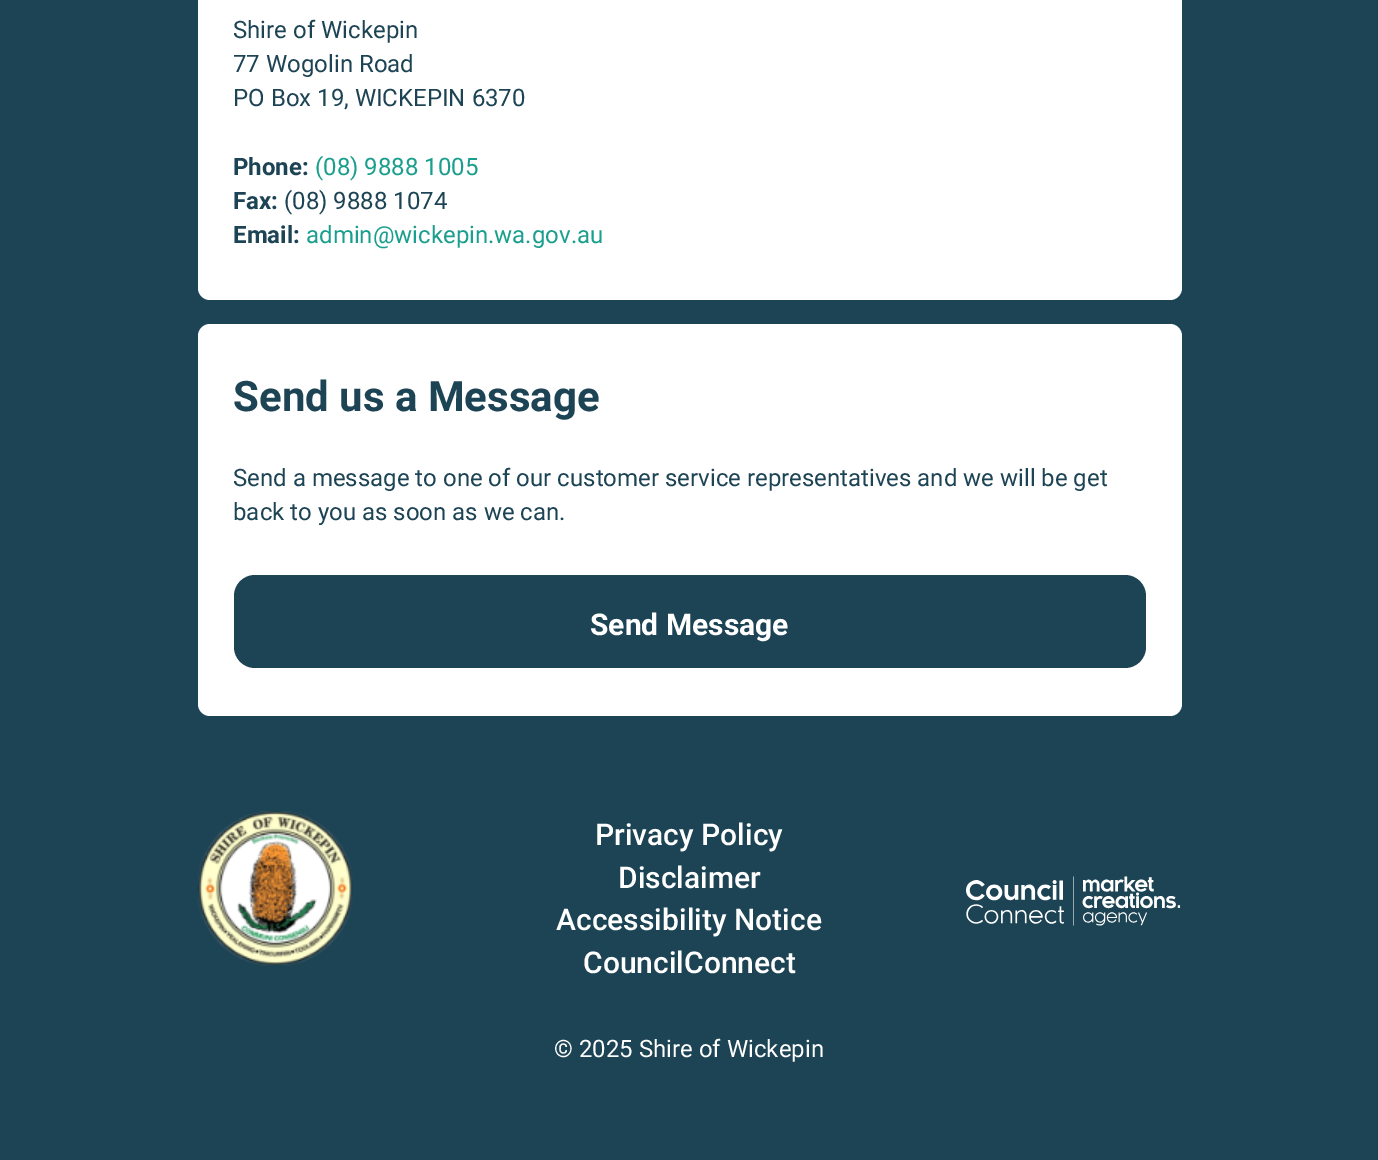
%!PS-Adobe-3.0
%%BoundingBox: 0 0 1378 1160
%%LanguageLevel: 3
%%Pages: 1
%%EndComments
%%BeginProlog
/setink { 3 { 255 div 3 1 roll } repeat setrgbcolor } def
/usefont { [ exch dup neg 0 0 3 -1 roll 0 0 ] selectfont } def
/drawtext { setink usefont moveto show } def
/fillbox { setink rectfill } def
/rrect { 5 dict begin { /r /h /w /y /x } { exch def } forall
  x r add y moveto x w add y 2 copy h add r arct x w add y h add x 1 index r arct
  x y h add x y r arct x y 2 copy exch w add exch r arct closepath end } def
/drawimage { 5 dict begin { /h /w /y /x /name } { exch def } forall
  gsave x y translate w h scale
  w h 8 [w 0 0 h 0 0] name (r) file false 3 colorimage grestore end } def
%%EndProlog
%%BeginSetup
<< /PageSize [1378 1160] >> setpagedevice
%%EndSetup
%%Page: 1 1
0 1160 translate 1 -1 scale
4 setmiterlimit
0 0 1378 1160 29 68 84 fillbox
255 255 255 setink
198 -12 984 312 12 rrect fill
(Shire of Wickepin) 233 38 /Roboto-Regular 24 29 68 84 drawtext
(77 Wogolin Road) 233 72 /Roboto-Regular 24 29 68 84 drawtext
(PO Box 19, WICKEPIN 6370) 233 106 /Roboto-Regular 24 29 68 84 drawtext
(Phone:) 233 175 /Roboto-Bold 24 29 68 84 drawtext
(\(08\) 9888 1005) 315 175 /Roboto-Regular 24 26 158 142 drawtext
(Fax:) 233 209 /Roboto-Bold 24 29 68 84 drawtext
(\(08\) 9888 1074) 284 209 /Roboto-Regular 24 29 68 84 drawtext
(Email:) 233 243 /Roboto-Bold 24 29 68 84 drawtext
(admin@wickepin.wa.gov.au) 306 243 /Roboto-Regular 24 26 158 142 drawtext
255 255 255 setink
198 324 984 392 12 rrect fill
(Send us a Message) 233 411 /Roboto-Bold 42 29 68 84 drawtext
(Send a message to one of our customer service representatives and we will be get) 233 486 /Roboto-Regular 24 29 68 84 drawtext
(back to you as soon as we can.) 233 520 /Roboto-Regular 24 29 68 84 drawtext
234 575 912 93 21 rrect fill
(Send Message) 590 635 /Roboto-Bold 30 255 255 255 drawtext
(assets/img1.rgb) 198 811 155 155 drawimage
(Privacy Policy) 595 845 /Roboto-Medium 30 255 255 255 drawtext
(Disclaimer) 618 888 /Roboto-Medium 30 255 255 255 drawtext
(Accessibility Notice) 556 930 /Roboto-Medium 30 255 255 255 drawtext
(CouncilConnect) 583 973 /Roboto-Medium 30 255 255 255 drawtext
(assets/img2.rgb) 966 876 215 50 drawimage
(© 2025 Shire of Wickepin) 554 1057 /Roboto-Regular 24 255 255 255 drawtext
showpage
%%EOF
